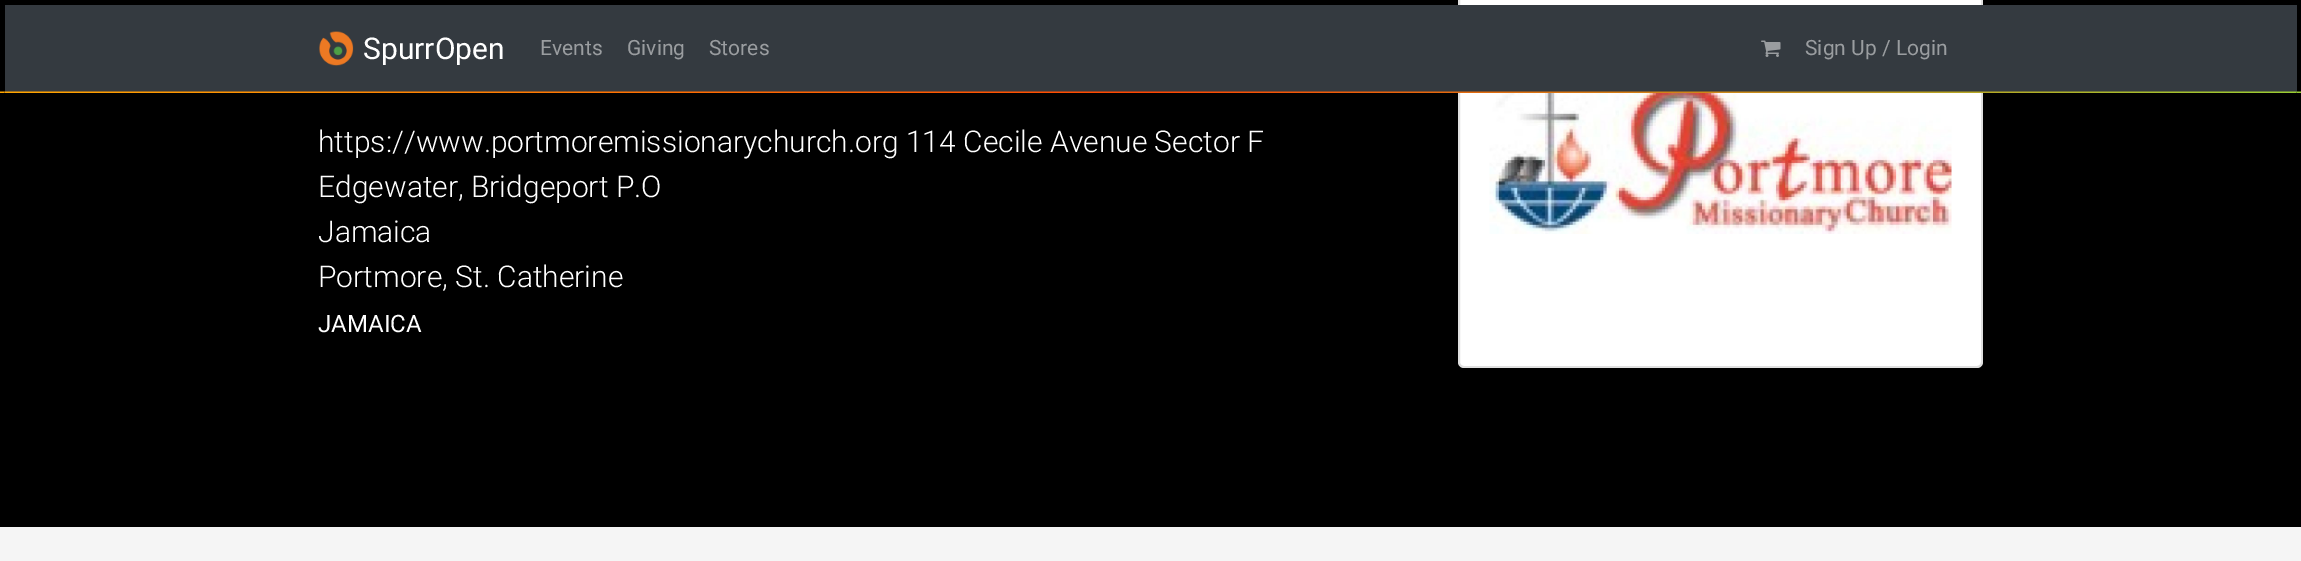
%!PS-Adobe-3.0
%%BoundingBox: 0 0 2301 561
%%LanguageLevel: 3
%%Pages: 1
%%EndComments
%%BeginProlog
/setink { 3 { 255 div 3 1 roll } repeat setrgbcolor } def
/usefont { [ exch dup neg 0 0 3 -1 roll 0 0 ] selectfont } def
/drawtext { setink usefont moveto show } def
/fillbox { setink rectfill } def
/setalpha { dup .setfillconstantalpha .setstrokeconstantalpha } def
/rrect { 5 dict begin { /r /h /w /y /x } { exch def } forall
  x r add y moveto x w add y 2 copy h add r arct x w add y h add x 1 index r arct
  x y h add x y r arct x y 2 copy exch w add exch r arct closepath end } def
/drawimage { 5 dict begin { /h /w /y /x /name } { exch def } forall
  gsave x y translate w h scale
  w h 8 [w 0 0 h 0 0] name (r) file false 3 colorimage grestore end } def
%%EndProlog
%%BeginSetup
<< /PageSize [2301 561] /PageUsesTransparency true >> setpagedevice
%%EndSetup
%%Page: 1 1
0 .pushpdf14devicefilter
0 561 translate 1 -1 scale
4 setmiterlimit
0 0 2301 561 245 245 245 fillbox
0 0 2301 527 0 0 0 fillbox
255 255 255 setink
1458 -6 525 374 6 rrect fill
0.12 setalpha
0 0 0 setink
2 setlinewidth
1459 -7 523 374 5 rrect stroke
1 setalpha
5 5 2292 87 52 58 64 fillbox
(assets/img1.rgb) 0 91 2301 2 drawimage
(assets/img2.rgb) 319 31 35 35 drawimage
(SpurrOpen) 363 59 /Roboto-Regular 30 255 255 255 drawtext
(Events) 540 55 /Roboto-Regular 21 154 157 160 drawtext
(Giving) 627 55 /Roboto-Regular 21 154 157 160 drawtext
(Stores) 709 55 /Roboto-Regular 21 154 157 160 drawtext
(assets/img3.rgb) 1761 40 20 17 drawimage
(Sign Up / Login) 1805 55 /Roboto-Regular 21 154 157 160 drawtext
(https://www.portmoremissionarychurch.org 114 Cecile Avenue Sector F) 318 152 /Roboto-Light 30 255 255 255 drawtext
(Edgewater, Bridgeport P.O) 318 197 /Roboto-Light 30 255 255 255 drawtext
(Jamaica) 318 242 /Roboto-Light 30 255 255 255 drawtext
(Portmore, St. Catherine) 318 287 /Roboto-Light 30 255 255 255 drawtext
(JAMAICA) 318 332 /Roboto-Regular 24 255 255 255 drawtext
(assets/img4.rgb) 1489 93 463 141 drawimage
.poppdf14devicefilter showpage
%%EOF
